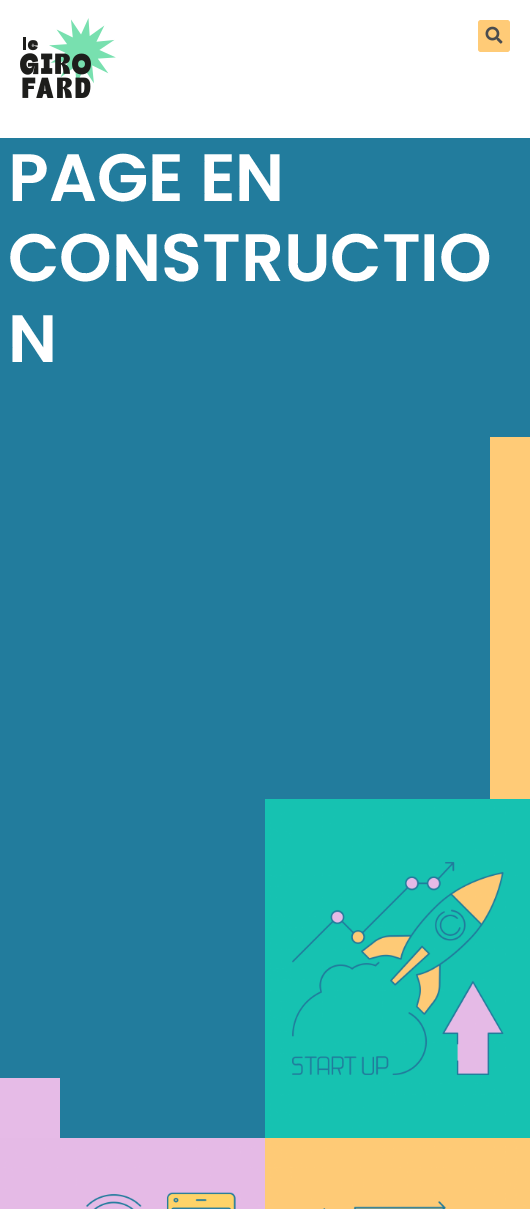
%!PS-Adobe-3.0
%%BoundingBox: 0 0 530 1209
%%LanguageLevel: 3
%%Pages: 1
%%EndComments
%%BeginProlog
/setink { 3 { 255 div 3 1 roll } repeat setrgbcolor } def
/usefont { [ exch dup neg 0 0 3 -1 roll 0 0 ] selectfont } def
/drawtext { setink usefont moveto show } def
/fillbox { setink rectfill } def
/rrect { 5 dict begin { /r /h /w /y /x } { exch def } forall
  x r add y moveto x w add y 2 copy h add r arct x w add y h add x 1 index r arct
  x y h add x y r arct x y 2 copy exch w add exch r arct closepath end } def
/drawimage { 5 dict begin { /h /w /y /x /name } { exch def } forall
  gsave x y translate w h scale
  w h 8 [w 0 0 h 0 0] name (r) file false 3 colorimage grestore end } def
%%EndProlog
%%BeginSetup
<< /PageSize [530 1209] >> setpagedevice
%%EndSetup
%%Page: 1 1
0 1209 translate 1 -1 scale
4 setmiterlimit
0 0 530 1209 255 255 255 fillbox
(assets/img1.rgb) 20 18 96 80 drawimage
255 203 119 setink
478 20 32 32 3 rrect fill
(assets/img2.rgb) 485 26 18 18 drawimage
0 138 530 661 34 124 157 fillbox
(PAGE EN) 8 201 /Poppins-SemiBold 67 255 255 255 drawtext
(CONSTRUCTIO) 8 281 /Poppins-SemiBold 67 255 255 255 drawtext
(N) 8 362 /Poppins-SemiBold 67 255 255 255 drawtext
490 437 40 362 255 203 119 fillbox
0 799 265 339 34 124 157 fillbox
0 1078 60 60 230 187 231 fillbox
(assets/img3.rgb) 265 799 265 339 drawimage
(assets/img4.rgb) 0 1138 265 71 drawimage
(assets/img5.rgb) 265 1138 265 71 drawimage
showpage
%%EOF
